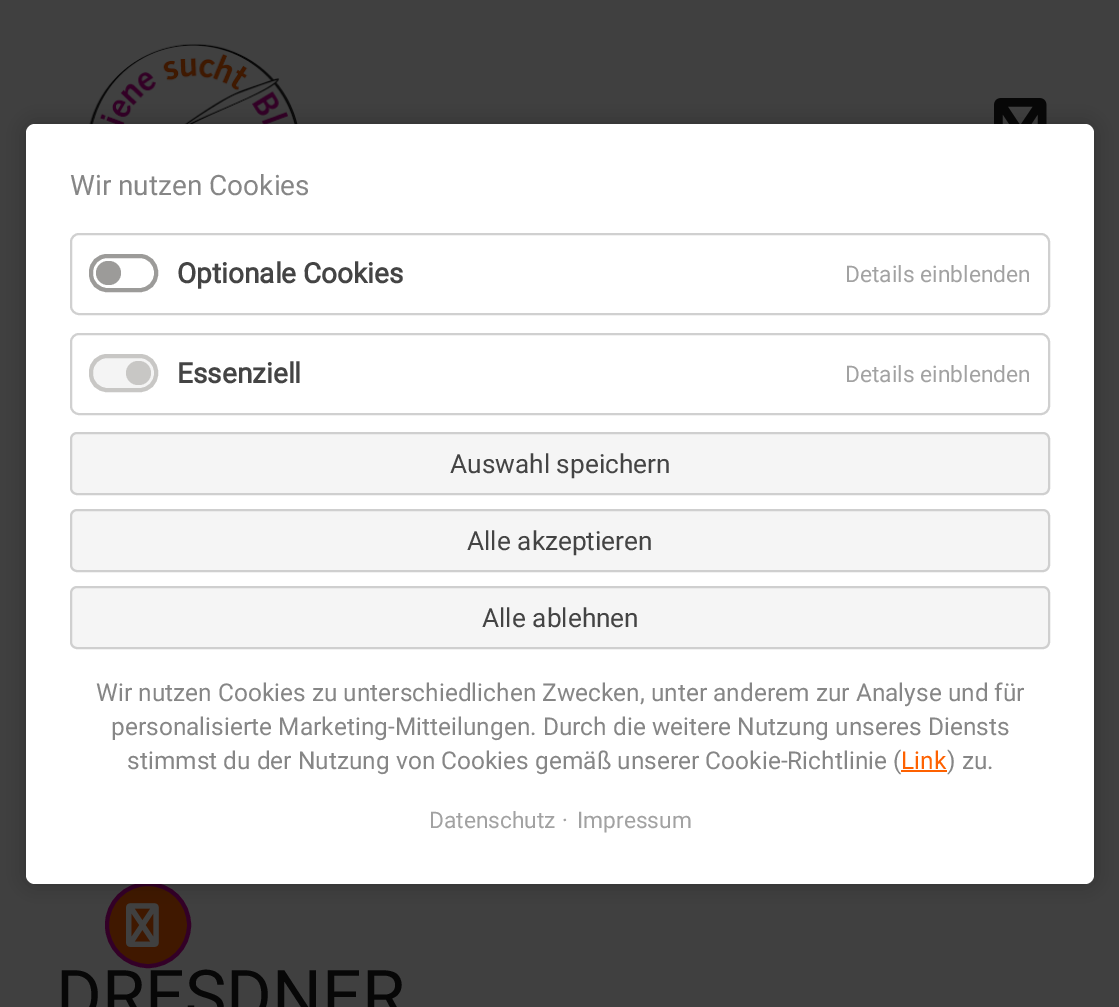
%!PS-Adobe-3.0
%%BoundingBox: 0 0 1119 1007
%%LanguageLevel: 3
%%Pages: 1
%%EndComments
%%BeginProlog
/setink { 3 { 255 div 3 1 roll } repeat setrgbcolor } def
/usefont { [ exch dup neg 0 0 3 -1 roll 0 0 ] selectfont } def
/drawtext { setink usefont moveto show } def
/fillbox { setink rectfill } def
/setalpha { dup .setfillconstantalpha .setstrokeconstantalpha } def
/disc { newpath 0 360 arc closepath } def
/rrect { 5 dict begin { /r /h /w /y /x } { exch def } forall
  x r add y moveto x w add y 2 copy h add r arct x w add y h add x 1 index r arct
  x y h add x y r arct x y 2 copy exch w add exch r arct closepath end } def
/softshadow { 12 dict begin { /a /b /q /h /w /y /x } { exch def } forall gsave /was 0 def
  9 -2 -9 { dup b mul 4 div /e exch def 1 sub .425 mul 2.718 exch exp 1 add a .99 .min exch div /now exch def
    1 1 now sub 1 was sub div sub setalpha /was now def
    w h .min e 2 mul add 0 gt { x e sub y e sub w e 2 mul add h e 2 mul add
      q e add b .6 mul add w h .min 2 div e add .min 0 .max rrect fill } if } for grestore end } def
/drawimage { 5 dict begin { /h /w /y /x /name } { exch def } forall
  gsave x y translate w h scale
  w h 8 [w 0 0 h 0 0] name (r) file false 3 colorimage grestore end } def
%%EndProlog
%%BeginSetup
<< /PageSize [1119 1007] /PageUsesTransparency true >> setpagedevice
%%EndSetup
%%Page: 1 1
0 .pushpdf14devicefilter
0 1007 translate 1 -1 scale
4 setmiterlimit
0 0 1119 1007 64 64 64 fillbox
(assets/img1.rgb) 56 43 245 81 drawimage
(assets/img2.rgb) 994 98 53 26 drawimage
64 24 0 setink
148 925 41 disc gsave fill grestore
51 0 39 setink
4 setlinewidth
stroke
(assets/img3.rgb) 126 903 33 44 drawimage
0 0 0 setink
26 124 1068 760 9 9 0.25 softshadow
255 255 255 setink
26 124 1068 760 9 rrect fill
(Wir nutzen Cookies) 70 195 /Roboto-Regular 28 134 134 134 drawtext
208 208 208 setink
2 setlinewidth
71 234 978 80 8 rrect stroke
156 155 153 setink
4 setlinewidth
91 256 65 34 16 rrect stroke
96 261 25 24 12 rrect fill
(Optionale Cookies) 177 283 /Roboto-Bold 28 68 68 68 drawtext
(Details einblenden) 845 282 /Roboto-Regular 22.75 162 162 162 drawtext
208 208 208 setink
2 setlinewidth
71 334 978 80 8 rrect stroke
244 244 244 setink
91 356 65 34 16 rrect gsave fill grestore
200 199 197 setink
4 setlinewidth
stroke
126 361 25 24 12 rrect fill
(Essenziell) 177 383 /Roboto-Bold 28 68 68 68 drawtext
(Details einblenden) 845 382 /Roboto-Regular 22.75 162 162 162 drawtext
245 245 245 setink
71 433 978 61 6 rrect gsave fill grestore
207 207 207 setink
2 setlinewidth
stroke
(Auswahl speichern) 450 473 /Roboto-Regular 26.25 68 68 68 drawtext
245 245 245 setink
71 510 978 61 6 rrect gsave fill grestore
207 207 207 setink
stroke
(Alle akzeptieren) 467 550 /Roboto-Regular 26.25 68 68 68 drawtext
245 245 245 setink
71 587 978 61 6 rrect gsave fill grestore
207 207 207 setink
stroke
(Alle ablehnen) 482 627 /Roboto-Regular 26.25 68 68 68 drawtext
(Wir nutzen Cookies zu unterschiedlichen Zwecken, unter anderem zur Analyse und für) 96 701 /Roboto-Regular 24.5 134 134 134 drawtext
(personalisierte Marketing-Mitteilungen. Durch die weitere Nutzung unseres Diensts) 111 735 /Roboto-Regular 24.5 134 134 134 drawtext
(stimmst du der Nutzung von Cookies gemäß unserer Cookie-Richtlinie \() 127 769 /Roboto-Regular 24.5 134 134 134 drawtext
(Link) 901 769 /Roboto-Regular 24.5 254 97 0 drawtext
901 770 46 2 254 97 0 fillbox
(\) zu.) 947 769 /Roboto-Regular 24.5 134 134 134 drawtext
(Datenschutz) 429 828 /Roboto-Regular 22.75 162 162 162 drawtext
(·) 562 828 /Roboto-Regular 22.75 162 162 162 drawtext
(Impressum) 577 828 /Roboto-Regular 22.75 162 162 162 drawtext
(DRESDNER) 56 1020 /Roboto-Regular 70 7 7 7 drawtext
.poppdf14devicefilter showpage
%%EOF
